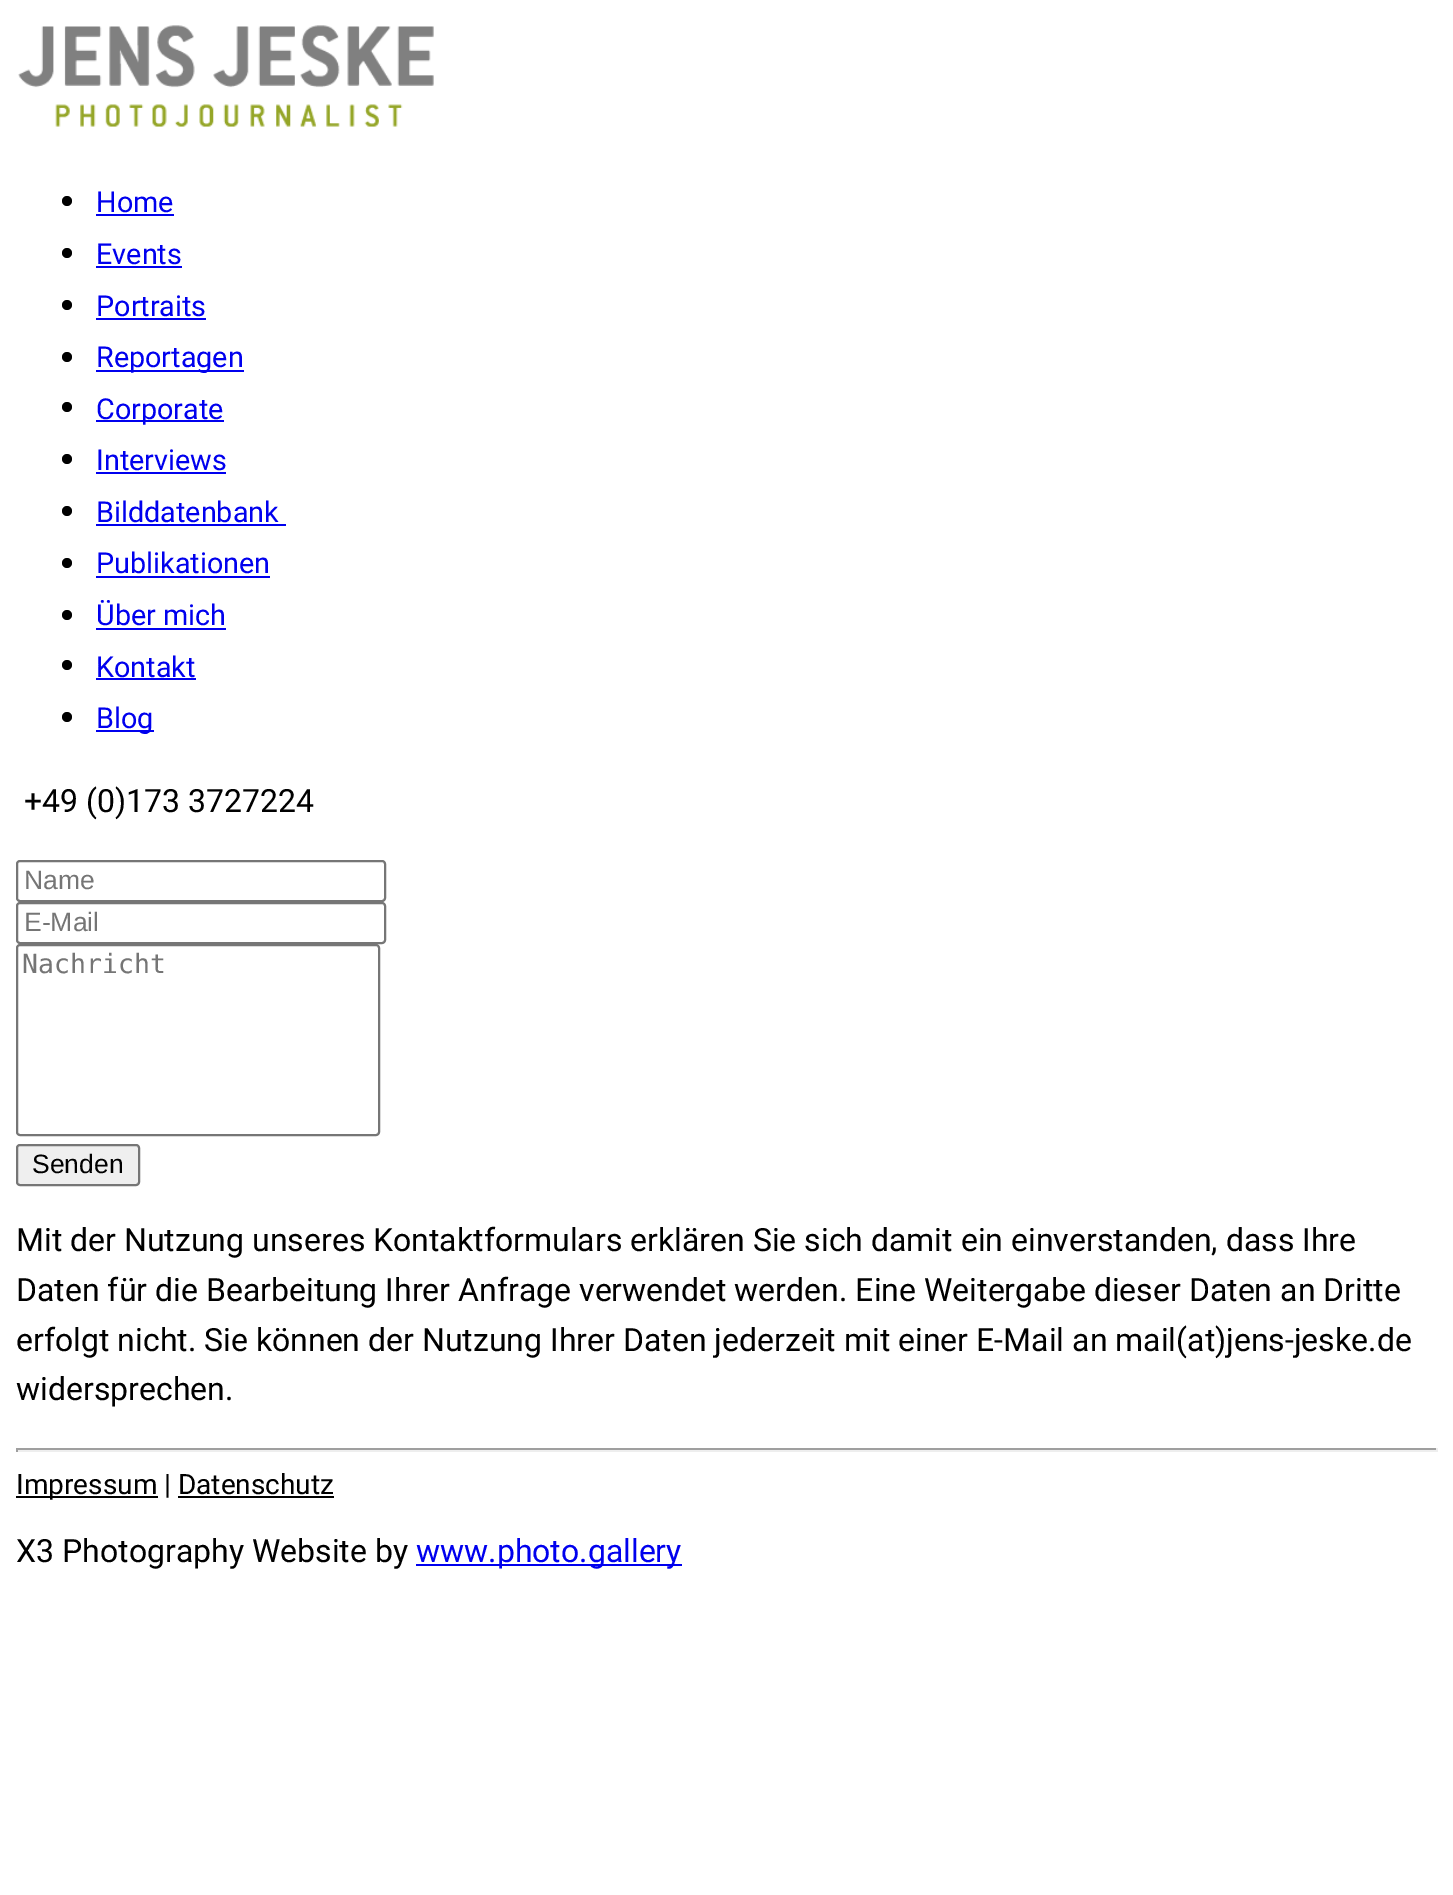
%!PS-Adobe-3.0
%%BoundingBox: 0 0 1453 1895
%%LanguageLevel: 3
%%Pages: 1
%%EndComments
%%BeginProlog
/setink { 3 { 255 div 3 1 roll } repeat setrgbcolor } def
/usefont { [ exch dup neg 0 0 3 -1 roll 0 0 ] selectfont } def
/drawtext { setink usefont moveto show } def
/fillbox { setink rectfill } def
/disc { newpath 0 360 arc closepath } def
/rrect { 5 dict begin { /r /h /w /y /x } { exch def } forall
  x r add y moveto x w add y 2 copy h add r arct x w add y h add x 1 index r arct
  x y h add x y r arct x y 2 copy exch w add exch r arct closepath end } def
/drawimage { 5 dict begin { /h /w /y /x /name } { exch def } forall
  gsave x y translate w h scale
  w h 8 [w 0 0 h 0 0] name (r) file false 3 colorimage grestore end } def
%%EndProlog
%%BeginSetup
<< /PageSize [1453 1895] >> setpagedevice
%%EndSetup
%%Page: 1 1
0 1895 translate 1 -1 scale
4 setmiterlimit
0 0 1453 1895 255 255 255 fillbox
(assets/img1.rgb) 18 25 416 102 drawimage
0 0 0 setink
67 201 5 disc fill
(Home) 96 212 /Roboto-Regular 28.75 0 0 238 drawtext
96 214 78 2 0 0 238 fillbox
0 0 0 setink
67 253 5 disc fill
(Events) 96 264 /Roboto-Regular 28.75 0 0 238 drawtext
96 266 86 2 0 0 238 fillbox
0 0 0 setink
67 305 5 disc fill
(Portraits) 96 316 /Roboto-Regular 28.75 0 0 238 drawtext
96 318 110 2 0 0 238 fillbox
0 0 0 setink
67 357 5 disc fill
96 370 148 2 0 0 238 fillbox
(Reportagen) 96 367 /Roboto-Regular 28.75 0 0 238 drawtext
0 0 0 setink
67 407 5 disc fill
96 420 128 2 0 0 238 fillbox
(Corporate) 96 419 /Roboto-Regular 28.75 0 0 238 drawtext
0 0 0 setink
67 459 5 disc fill
(Interviews) 96 470 /Roboto-Regular 28.75 0 0 238 drawtext
96 472 130 2 0 0 238 fillbox
0 0 0 setink
67 511 5 disc fill
(Bilddatenbank) 96 522 /Roboto-Regular 28.75 0 0 238 drawtext
96 524 190 2 0 0 238 fillbox
0 0 0 setink
67 563 5 disc fill
(Publikationen) 96 573 /Roboto-Regular 28.75 0 0 238 drawtext
96 576 174 2 0 0 238 fillbox
0 0 0 setink
67 615 5 disc fill
(Über mich) 96 625 /Roboto-Regular 28.75 0 0 238 drawtext
96 628 130 2 0 0 238 fillbox
0 0 0 setink
67 665 5 disc fill
(Kontakt) 96 677 /Roboto-Regular 28.75 0 0 238 drawtext
96 678 100 2 0 0 238 fillbox
0 0 0 setink
67 717 5 disc fill
96 730 58 2 0 0 238 fillbox
(Blog) 96 728 /Roboto-Regular 28.75 0 0 238 drawtext
(+49 \(0\)173 3727224) 24 812 /Roboto-Regular 32 0 0 0 drawtext
118 118 118 setink
2 setlinewidth
17 861 368 40 3 rrect stroke
(Name) 24 889 /LiberationSans-Regular 26.5 117 117 117 drawtext
118 118 118 setink
17 903 368 40 3 rrect stroke
(E-Mail) 24 931 /LiberationSans-Regular 26.5 117 117 117 drawtext
118 118 118 setink
17 945 362 190 3 rrect stroke
(Nachricht) 22 973 /DejaVuSansMono-Regular 26.5 117 117 117 drawtext
239 239 239 setink
17 1145 122 40 3 rrect gsave fill grestore
118 118 118 setink
stroke
(Senden) 32 1173 /LiberationSans-Regular 26.5 0 0 0 drawtext
(Mit der Nutzung unseres Kontaktformulars erklären Sie sich damit ein einverstanden, dass Ihre) 16 1251 /Roboto-Regular 32 0 0 0 drawtext
(Daten für die Bearbeitung Ihrer Anfrage verwendet werden. Eine Weitergabe dieser Daten an Dritte) 16 1301 /Roboto-Regular 32 0 0 0 drawtext
(erfolgt nicht. Sie können der Nutzung Ihrer Daten jederzeit mit einer E-Mail an mail\(at\)jens-jeske.de) 16 1351 /Roboto-Regular 32 0 0 0 drawtext
(widersprechen.) 16 1400 /Roboto-Regular 32 0 0 0 drawtext
16 1448 1422 2 159 159 159 fillbox
1436 1448 2 4 238 238 238 fillbox
16 1450 1422 2 238 238 238 fillbox
16 1448 2 4 159 159 159 fillbox
16 1496 142 2 0 0 0 fillbox
(Impressum | Datenschutz) 16 1494 /Roboto-Regular 28 0 0 0 drawtext
178 1496 156 2 0 0 0 fillbox
(X3 Photography Website by) 16 1562 /Roboto-Regular 32 0 0 0 drawtext
416 1564 266 2 0 0 238 fillbox
(www.photo.gallery) 416 1562 /Roboto-Regular 32 0 0 238 drawtext
showpage
%%EOF
